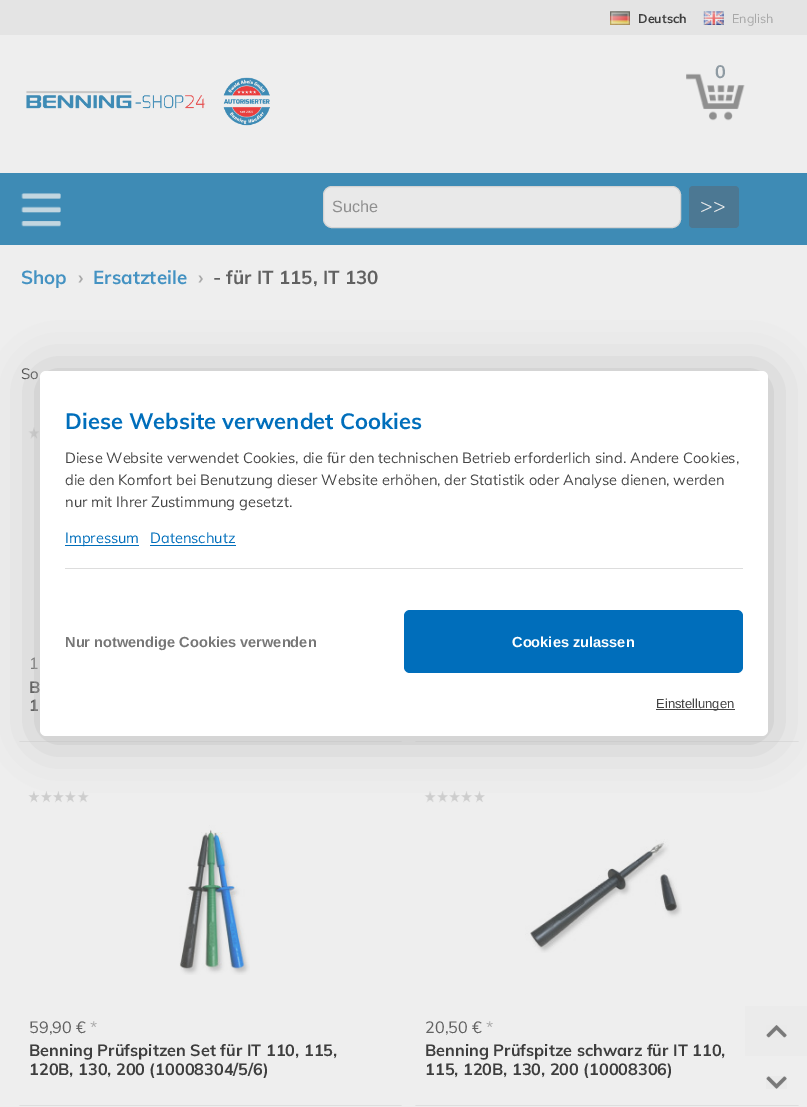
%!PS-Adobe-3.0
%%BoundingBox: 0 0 807 1107
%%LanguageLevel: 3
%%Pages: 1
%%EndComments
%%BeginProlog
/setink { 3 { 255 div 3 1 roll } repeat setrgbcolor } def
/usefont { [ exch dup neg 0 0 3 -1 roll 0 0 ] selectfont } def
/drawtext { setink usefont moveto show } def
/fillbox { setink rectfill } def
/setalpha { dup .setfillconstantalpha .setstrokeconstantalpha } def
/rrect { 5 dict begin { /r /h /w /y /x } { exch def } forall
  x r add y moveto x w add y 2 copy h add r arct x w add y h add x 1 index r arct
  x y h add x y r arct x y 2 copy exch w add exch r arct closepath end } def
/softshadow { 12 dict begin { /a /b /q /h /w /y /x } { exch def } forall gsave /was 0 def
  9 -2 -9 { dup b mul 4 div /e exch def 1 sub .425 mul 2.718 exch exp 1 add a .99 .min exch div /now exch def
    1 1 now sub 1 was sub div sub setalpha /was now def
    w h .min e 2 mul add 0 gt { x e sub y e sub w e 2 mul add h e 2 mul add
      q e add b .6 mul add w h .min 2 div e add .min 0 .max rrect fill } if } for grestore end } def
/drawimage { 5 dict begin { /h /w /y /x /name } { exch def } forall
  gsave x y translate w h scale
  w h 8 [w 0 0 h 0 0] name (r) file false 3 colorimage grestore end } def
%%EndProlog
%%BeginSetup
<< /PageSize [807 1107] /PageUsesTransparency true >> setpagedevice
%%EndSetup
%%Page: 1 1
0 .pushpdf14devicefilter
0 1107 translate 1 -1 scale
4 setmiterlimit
0 0 807 1107 238 238 238 fillbox
0 0 807 35 228 228 228 fillbox
(assets/img1.rgb) 610 11 20 14 drawimage
(Deutsch) 638 23 /Muli-Bold 12.5 62 62 62 drawtext
(assets/img2.rgb) 703 11 21 14 drawimage
(English) 732 23 /Muli-Regular 12.5 168 168 168 drawtext
(assets/img3.rgb) 686 73 59 48 drawimage
(0) 715 78 /Muli-Bold 18 143 155 163 drawtext
(assets/img4.rgb) 26 77 244 49 drawimage
0 173 807 72 62 139 181 fillbox
(assets/img5.rgb) 21 193 40 34 drawimage
233 233 233 setink
323.5 186.5 357 41 8.5 rrect gsave fill grestore
211 211 211 setink
stroke
(Suche) 332 212 /LiberationSans-Regular 16.25 143 143 143 drawtext
76 120 147 setink
689 186 50 42 4 rrect fill
(>>) 700 213 /Muli-Light 21 238 238 238 drawtext
(Shop) 21 284 /Muli-Bold 18.75 68 146 194 drawtext
(›) 78 284 /Muli-Bold 18.75 168 168 168 drawtext
(Ersatzteile) 93 284 /Muli-Bold 18.75 68 146 194 drawtext
(›) 198 284 /Muli-Bold 18.75 168 168 168 drawtext
(- für IT 115, IT 130) 213 284 /Muli-Bold 18.75 97 97 97 drawtext
(So) 21 379 /Muli-Regular 15 62 62 62 drawtext
222 222 222 setink
402 742 moveto 19 742 lineto 20 741 lineto 401 741 lineto closepath fill
(assets/img6.rgb) 28 427 12 12 drawimage
(1) 29 669 /Muli-Regular 16.25 97 97 97 drawtext
(B) 29 693 /Muli-Bold 16.25 62 62 62 drawtext
(1) 29 711 /Muli-Bold 16.25 62 62 62 drawtext
222 222 222 setink
799 742 moveto 415 742 lineto 416 741 lineto 798 741 lineto closepath fill
402 1106 moveto 19 1106 lineto 20 1105 lineto 401 1105 lineto closepath fill
(assets/img7.rgb) 28 791 61 12 drawimage
(assets/img8.rgb) 179 825 71 150 drawimage
(59,90 €) 29 1033 /Muli-Regular 16.25 97 97 97 drawtext
(*) 90 1033 /Muli-Regular 16.25 168 168 168 drawtext
(Benning Prüfspitzen Set für IT 110, 115,) 29 1056 /Muli-Bold 16.25 62 62 62 drawtext
(120B, 130, 200 \(10008304/5/6\)) 29 1075 /Muli-Bold 16.25 62 62 62 drawtext
222 222 222 setink
799 1106 moveto 415 1106 lineto 416 1105 lineto 798 1105 lineto closepath fill
(assets/img9.rgb) 424 791 61 12 drawimage
(assets/img10.rgb) 525 839 157 114 drawimage
(20,50 €) 425 1033 /Muli-Regular 16.25 97 97 97 drawtext
(*) 486 1033 /Muli-Regular 16.25 168 168 168 drawtext
(Benning Prüfspitze schwarz für IT 110,) 425 1056 /Muli-Bold 16.25 62 62 62 drawtext
(115, 120B, 130, 200 \(10008306\)) 425 1075 /Muli-Bold 16.25 62 62 62 drawtext
745 1006 62 50 235 235 235 fillbox
(assets/img11.rgb) 766 1025 21 13 drawimage
(assets/img12.rgb) 766 1076 21 13 drawimage
187 187 187 setink
40 374 728 365 6 24 1 softshadow
255 255 255 setink
40 371 728 365 6 rrect fill
(Diese Website verwendet Cookies) 65 429 /Muli-Bold 22 0 110 187 drawtext
(Diese Website verwendet Cookies, die für den technischen Betrieb erforderlich sind. Andere Cookies,) 65 463 /Muli-Regular 14.6 68 68 68 drawtext
(die den Komfort bei Benutzung dieser Website erhöhen, der Statistik oder Analyse dienen, werden) 65 485 /Muli-Regular 14.6 68 68 68 drawtext
(nur mit Ihrer Zustimmung gesetzt.) 65 507 /Muli-Regular 14.6 68 68 68 drawtext
65 545 74 1 0 110 187 fillbox
(Impressum) 65 543 /Muli-Regular 14.6 0 110 187 drawtext
(Datenschutz) 150 543 /Muli-Regular 14.6 0 110 187 drawtext
150 545 86 1 0 110 187 fillbox
65 568 678 1 221 221 221 fillbox
(Nur notwendige Cookies verwenden) 65 647 /LiberationSans-Bold 14.6 119 119 119 drawtext
0 110 187 setink
404 610 339 63 6 rrect fill
(Cookies zulassen) 512 647 /LiberationSans-Bold 14.6 255 255 255 drawtext
656 709 79 1 68 68 68 fillbox
(Einstellungen) 656 708 /LiberationSans-Regular 13 68 68 68 drawtext
.poppdf14devicefilter showpage
%%EOF
